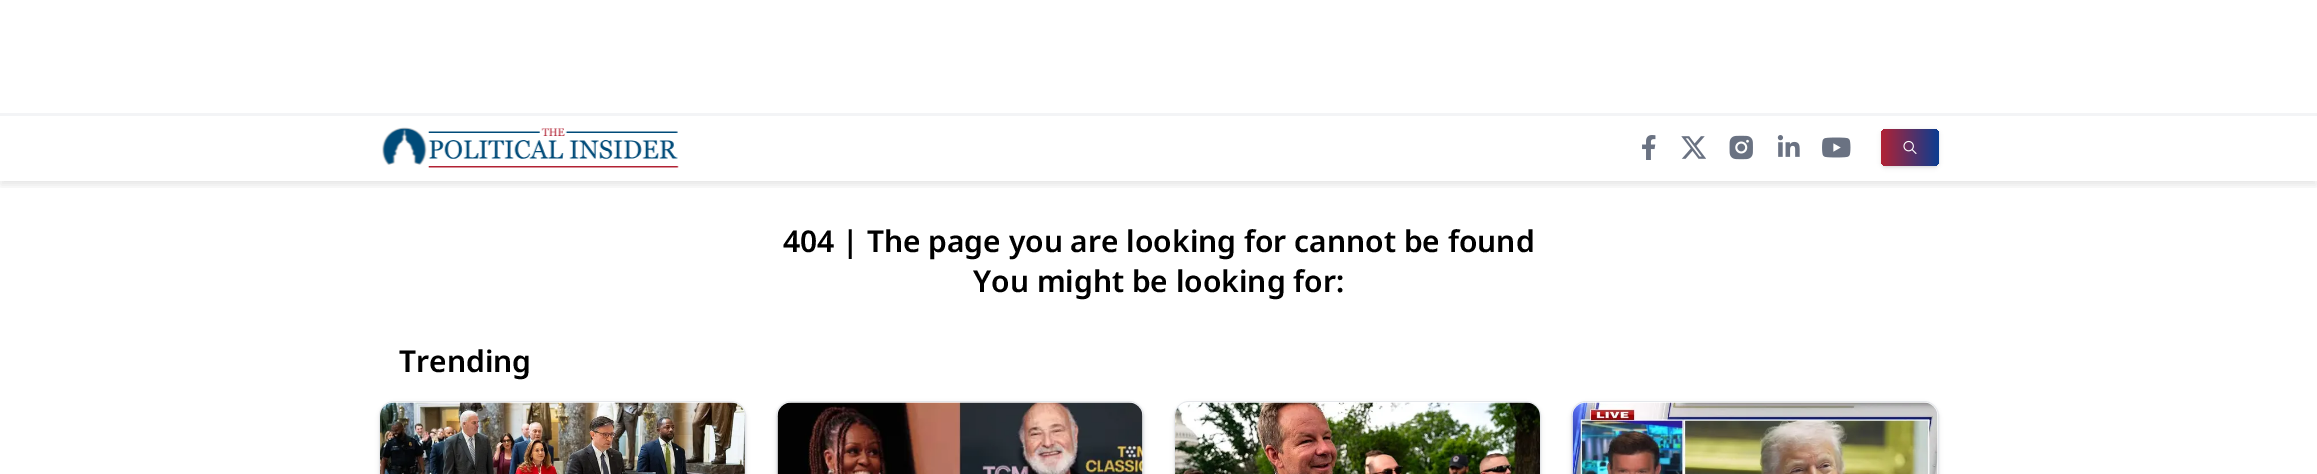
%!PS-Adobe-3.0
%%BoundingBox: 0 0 2317 474
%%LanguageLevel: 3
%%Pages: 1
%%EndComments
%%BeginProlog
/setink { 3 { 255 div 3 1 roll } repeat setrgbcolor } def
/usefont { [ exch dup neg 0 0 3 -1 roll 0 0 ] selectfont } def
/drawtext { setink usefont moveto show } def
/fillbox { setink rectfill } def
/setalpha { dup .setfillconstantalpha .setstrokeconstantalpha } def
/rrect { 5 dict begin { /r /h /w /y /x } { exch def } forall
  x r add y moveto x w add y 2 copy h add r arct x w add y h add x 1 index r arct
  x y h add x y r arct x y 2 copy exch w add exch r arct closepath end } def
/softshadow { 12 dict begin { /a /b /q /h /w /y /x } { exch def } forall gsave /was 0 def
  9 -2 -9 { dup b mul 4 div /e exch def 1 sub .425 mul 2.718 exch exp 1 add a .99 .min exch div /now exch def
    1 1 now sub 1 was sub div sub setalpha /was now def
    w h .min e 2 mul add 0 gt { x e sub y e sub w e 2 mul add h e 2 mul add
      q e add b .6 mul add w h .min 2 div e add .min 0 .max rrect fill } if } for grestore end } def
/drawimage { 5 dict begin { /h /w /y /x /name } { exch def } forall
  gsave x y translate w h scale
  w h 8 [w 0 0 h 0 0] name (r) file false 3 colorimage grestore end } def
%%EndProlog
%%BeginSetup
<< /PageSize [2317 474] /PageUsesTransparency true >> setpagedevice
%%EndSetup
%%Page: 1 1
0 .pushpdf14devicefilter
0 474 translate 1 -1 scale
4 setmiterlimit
0 0 2317 474 255 255 255 fillbox
gsave
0 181 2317 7 rectclip
0 0 0 setink
1 6 2315 179 0 4 0.1 softshadow
grestore
0 113 2317 3 243 244 246 fillbox
(assets/img1.rgb) 382 127 297 41 drawimage
(assets/img2.rgb) 1642 135 14 25 drawimage
(assets/img3.rgb) 1681 136 25 23 drawimage
(assets/img4.rgb) 1729 135 24 25 drawimage
(assets/img5.rgb) 1777 135 23 22 drawimage
(assets/img6.rgb) 1822 137 29 21 drawimage
0 0 0 setink
1883 131 55 35 4 1 0.1 softshadow
1881 130 58 38 5 2 0.1 softshadow
gsave 1881 129 58 37 5 rrect clip newpath
<< /ShadingType 2 /ColorSpace /DeviceRGB /Coords [1881 148 1939 148] /Extend [true true] /Function << /FunctionType 2 /Domain [0 1] /C0 [0.698 0.133 0.204] /C1 [0.043 0.239 0.569] /N 1 >> >> shfill grestore
(assets/img7.rgb) 1903 140 14 14 drawimage
(404 | The page you are looking for cannot be found) 783 252 /NotoSans-SemiBold 30 0 0 0 drawtext
(You might be looking for:) 973 292 /NotoSans-SemiBold 30 0 0 0 drawtext
(Trending) 399 372 /NotoSans-SemiBold 30 0 0 0 drawtext
379 403 367 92 15 2 0.1 softshadow
229 231 235 setink
379.5 401.5 366 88 14.5 rrect stroke
(assets/img8.rgb) 380 402 365 72 drawimage
0 0 0 setink
776 403 368 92 15 2 0.1 softshadow
255 255 255 setink
776.5 401.5 367 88 14.5 rrect gsave fill grestore
229 231 235 setink
stroke
(assets/img9.rgb) 777 402 366 72 drawimage
0 0 0 setink
1174 403 367 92 15 2 0.1 softshadow
229 231 235 setink
1174.5 401.5 366 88 14.5 rrect stroke
(assets/img10.rgb) 1175 402 365 72 drawimage
0 0 0 setink
1571 403 368 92 15 2 0.1 softshadow
255 255 255 setink
1571.5 401.5 367 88 14.5 rrect gsave fill grestore
229 231 235 setink
stroke
(assets/img11.rgb) 1572 402 366 72 drawimage
.poppdf14devicefilter showpage
%%EOF
